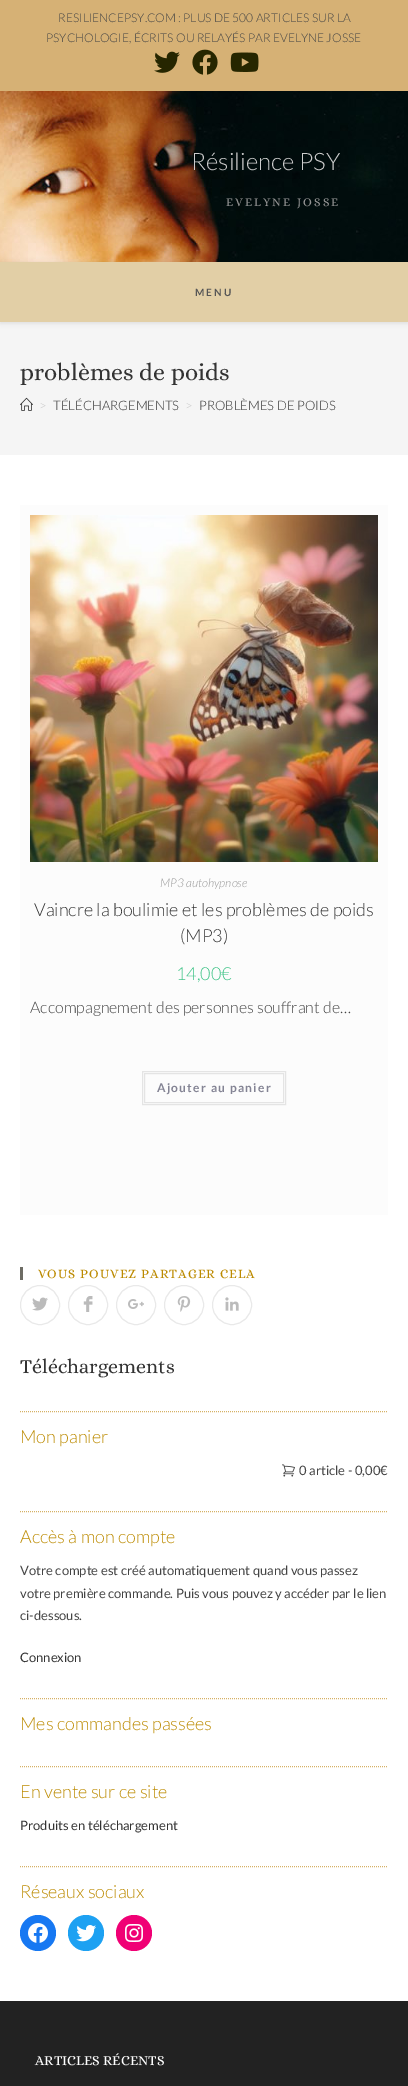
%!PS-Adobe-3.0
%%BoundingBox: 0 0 408 2086
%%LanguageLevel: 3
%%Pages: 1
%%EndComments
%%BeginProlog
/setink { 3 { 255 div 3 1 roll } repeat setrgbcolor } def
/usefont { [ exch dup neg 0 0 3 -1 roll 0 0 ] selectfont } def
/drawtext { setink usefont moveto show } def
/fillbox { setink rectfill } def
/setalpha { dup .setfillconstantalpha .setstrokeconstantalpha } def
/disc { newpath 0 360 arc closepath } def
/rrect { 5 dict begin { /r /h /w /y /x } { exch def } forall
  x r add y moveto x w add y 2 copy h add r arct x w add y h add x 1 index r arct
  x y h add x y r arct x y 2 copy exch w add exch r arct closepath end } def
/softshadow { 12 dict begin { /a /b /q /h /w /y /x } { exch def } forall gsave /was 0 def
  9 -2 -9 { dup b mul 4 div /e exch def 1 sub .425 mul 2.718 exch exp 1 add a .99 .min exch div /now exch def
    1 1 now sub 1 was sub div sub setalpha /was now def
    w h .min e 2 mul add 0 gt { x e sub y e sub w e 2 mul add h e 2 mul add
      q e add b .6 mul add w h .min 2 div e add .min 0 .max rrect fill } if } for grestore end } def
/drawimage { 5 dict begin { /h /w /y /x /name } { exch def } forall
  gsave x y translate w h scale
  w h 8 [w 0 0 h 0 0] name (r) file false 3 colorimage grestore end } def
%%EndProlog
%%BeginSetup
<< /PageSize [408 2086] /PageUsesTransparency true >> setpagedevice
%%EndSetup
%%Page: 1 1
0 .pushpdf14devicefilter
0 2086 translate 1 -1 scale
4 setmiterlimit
0 0 408 2086 255 255 255 fillbox
0 0 408 91 214 177 117 fillbox
(RESILIENCEPSY.COM : PLUS DE 500 ARTICLES SUR LA) 58 22 /Lato-Light 12 68 68 68 drawtext
(PSYCHOLOGIE, ÉCRITS OU RELAYÉS PAR EVELYNE JOSSE) 46 42 /Lato-Light 12 68 68 68 drawtext
(assets/img1.rgb) 154 51 26 22 drawimage
(assets/img2.rgb) 192 49 26 26 drawimage
(assets/img3.rgb) 230 52 29 20 drawimage
(assets/img4.rgb) 0 91 408 171 drawimage
(Résilience PSY) 191 170 /Lato-Light 24 204 204 204 drawtext
/Alice-Regular 12 usefont
146 146 146 setink
226 206 moveto 2 0 (EVELYNE JOSSE) ashow
0 322 408 133 245 245 245 fillbox
0 0 0 setink
0 263 408 60 0 2.5 0.1 softshadow
0 262 408 60 226 207 166 fillbox
/Lato-Bold 10 usefont
85 85 85 setink
195 296 moveto 2 0 (MENU) ashow
(problèmes de poids) 20 380 /Alice-Regular 24 51 51 51 drawtext
(assets/img5.rgb) 20 397 13 14 drawimage
(>) 39 410 /Lato-Light 13 198 198 198 drawtext
(TÉLÉCHARGEMENTS) 53 410 /Lato-Light 13 51 51 51 drawtext
(>) 185 410 /Lato-Light 13 198 198 198 drawtext
(PROBLÈMES DE POIDS) 199 410 /Lato-Light 13 51 51 51 drawtext
20 505 368 710 252 252 252 fillbox
(assets/img6.rgb) 30 515 348 347 drawimage
(MP3 autohypnose) 160 887 /Lato-LightItalic 12 153 153 153 drawtext
(Vaincre la boulimie et les problèmes de poids) 34 916 /Lato-Light 18 51 51 51 drawtext
(\(MP3\)) 180 942 /Lato-Light 18 51 51 51 drawtext
(14,00€) 176 980 /Lato-Light 18 63 195 135 drawtext
(Accompagnement des personnes souffrant de…) 30 1013 /Lato-Light 16 68 68 68 drawtext
228 228 228 setink
142.5 1071.5 143 33 rectstroke
144.5 1073.5 139 29 rectstroke
/Lato-Bold 12 usefont
132 132 148 setink
157 1092 moveto 1.25 0 (Ajouter au panier) ashow
20 1267 3 13 109 108 100 fillbox
/Alice-Regular 13 usefont
188 138 0 setink
38 1278 moveto 1 0 (VOUS POUVEZ PARTAGER CELA) ashow
233 233 233 setink
40 1305 19.5 disc stroke
(assets/img7.rgb) 32 1297 16 14 drawimage
88 1305 19.5 disc stroke
(assets/img8.rgb) 83 1296 10 16 drawimage
136 1305 19.5 disc stroke
(assets/img9.rgb) 128 1299 16 10 drawimage
184 1305 19.5 disc stroke
(assets/img10.rgb) 177 1296 14 16 drawimage
232 1305 19.5 disc stroke
(assets/img11.rgb) 225 1297 14 14 drawimage
(Téléchargements) 20 1373 /Alice-Regular 20 51 51 51 drawtext
214 177 101 setink
[1 1] 0 setdash
20 1411.5 moveto 388 1411.5 lineto stroke
(Mon panier) 20 1443 /Lato-Light 18 188 138 0 drawtext
(assets/img12.rgb) 282 1464 13 13 drawimage
(0 article - 0,00€) 299 1475 /Lato-Regular 13 68 68 68 drawtext
214 177 101 setink
20 1511.5 moveto 388 1511.5 lineto stroke
(Accès à mon compte) 20 1543 /Lato-Light 18 188 138 0 drawtext
(Votre compte est créé automatiquement quand vous passez) 20 1575 /Lato-Regular 13 68 68 68 drawtext
(votre première commande. Puis vous pouvez y accéder par le lien) 20 1598 /Lato-Regular 13 68 68 68 drawtext
(ci-dessous.) 20 1620 /Lato-Regular 13 68 68 68 drawtext
(Connexion) 20 1662 /Lato-Regular 13 51 51 51 drawtext
214 177 101 setink
20 1698.5 moveto 388 1698.5 lineto stroke
(Mes commandes passées) 20 1730 /Lato-Light 18 188 138 0 drawtext
214 177 101 setink
20 1766.5 moveto 388 1766.5 lineto stroke
(En vente sur ce site) 20 1798 /Lato-Light 18 188 138 0 drawtext
(Produits en téléchargement) 20 1830 /Lato-Regular 13 51 51 51 drawtext
214 177 101 setink
20 1866.5 moveto 388 1866.5 lineto stroke
(Réseaux sociaux) 20 1898 /Lato-Light 18 188 138 0 drawtext
23 120 242 setink
38 1933 18 disc fill
(assets/img13.rgb) 28 1923 20 20 drawimage
29 161 242 setink
86 1933 18 disc fill
(assets/img14.rgb) 76 1925 20 17 drawimage
240 0 117 setink
134 1933 18 disc fill
(assets/img15.rgb) 125 1924 18 18 drawimage
0 2001 408 85 34 34 34 fillbox
(ARTICLES RÉCENTS) 35 2065 /Alice-Regular 14 255 255 255 drawtext
.poppdf14devicefilter showpage
%%EOF
